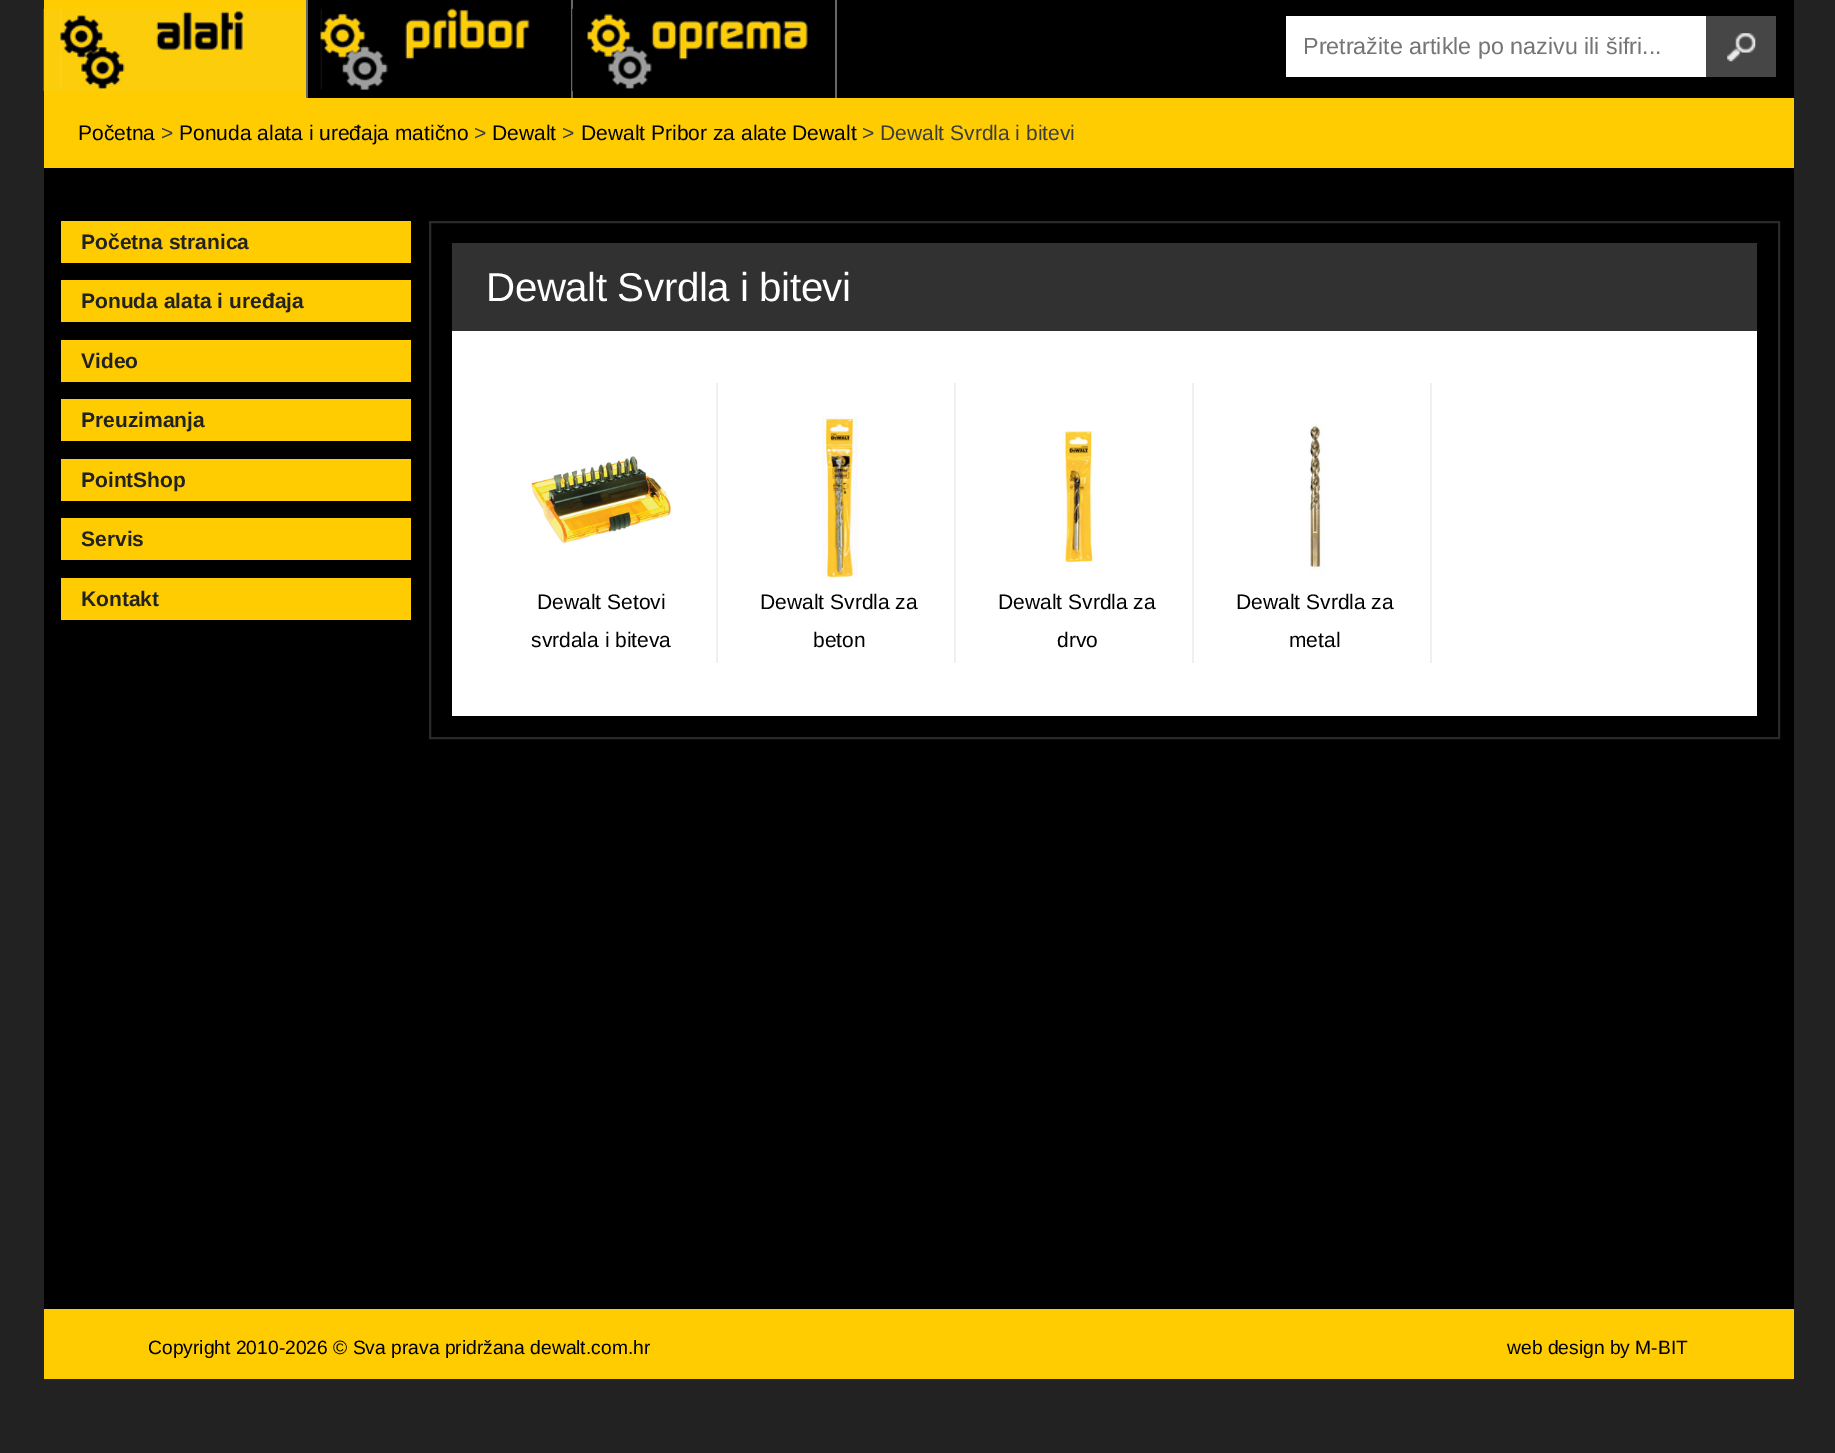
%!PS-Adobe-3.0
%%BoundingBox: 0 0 1835 1453
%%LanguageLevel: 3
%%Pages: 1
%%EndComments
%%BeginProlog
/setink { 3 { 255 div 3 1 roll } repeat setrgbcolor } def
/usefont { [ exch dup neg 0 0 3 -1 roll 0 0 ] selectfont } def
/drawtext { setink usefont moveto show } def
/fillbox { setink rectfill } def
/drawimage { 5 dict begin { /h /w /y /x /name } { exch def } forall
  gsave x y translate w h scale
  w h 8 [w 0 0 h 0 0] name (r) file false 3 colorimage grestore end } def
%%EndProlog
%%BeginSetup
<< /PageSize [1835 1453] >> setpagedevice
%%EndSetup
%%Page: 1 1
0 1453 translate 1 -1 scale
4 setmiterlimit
0 0 1835 1453 34 34 34 fillbox
44 0 1750 1309 0 0 0 fillbox
44 98 1750 70 254 204 0 fillbox
44 0 262 98 254 204 0 fillbox
(assets/img1.rgb) 43 8 263 83 drawimage
306 0 2 98 102 102 102 fillbox
(assets/img2.rgb) 320 8 210 82 drawimage
571 0 2 98 102 102 102 fillbox
(assets/img3.rgb) 572 8 236 83 drawimage
835 0 2 98 102 102 102 fillbox
1286 16 420 61 255 255 255 fillbox
(Pretražite artikle po nazivu ili šifri...) 1303 54 /LiberationSans-Regular 23.3 117 117 117 drawtext
1706 16 70 61 70 70 70 fillbox
(assets/img4.rgb) 1727 33 29 29 drawimage
(Početna) 78 140 /LiberationSans-Regular 21 0 0 0 drawtext
(>) 161 140 /LiberationSans-Regular 21 61 61 61 drawtext
(Ponuda alata i uređaja matično) 179 140 /LiberationSans-Regular 21 0 0 0 drawtext
(>) 474 140 /LiberationSans-Regular 21 61 61 61 drawtext
(Dewalt) 492 140 /LiberationSans-Regular 21 0 0 0 drawtext
(>) 562 140 /LiberationSans-Regular 21 61 61 61 drawtext
(Dewalt Pribor za alate Dewalt) 581 140 /LiberationSans-Regular 21 0 0 0 drawtext
(> Dewalt Svrdla i bitevi) 862 140 /LiberationSans-Regular 21 61 61 61 drawtext
61 221 350 42 254 204 0 fillbox
(Početna stranica) 81 249 /LiberationSans-Bold 21 34 34 34 drawtext
61 280 350 42 254 204 0 fillbox
(Ponuda alata i uređaja) 81 308 /LiberationSans-Bold 21 34 34 34 drawtext
61 340 350 42 254 204 0 fillbox
(Video) 81 368 /LiberationSans-Bold 21 34 34 34 drawtext
61 399 350 42 254 204 0 fillbox
(Preuzimanja) 81 427 /LiberationSans-Bold 21 34 34 34 drawtext
61 459 350 42 254 204 0 fillbox
(PointShop) 81 487 /LiberationSans-Bold 21 34 34 34 drawtext
61 518 350 42 254 204 0 fillbox
(Servis) 81 546 /LiberationSans-Bold 21 34 34 34 drawtext
61 578 350 42 254 204 0 fillbox
(Kontakt) 81 606 /LiberationSans-Bold 21 34 34 34 drawtext
43 42 42 setink
2 setlinewidth
430 222 1349 516 rectstroke
452 331 1305 385 255 255 255 fillbox
452 243 1305 88 49 49 49 fillbox
/LiberationSans-Regular 40.25 usefont
255 255 255 setink
486 301 moveto -0.4 0 (Dewalt Svrdla i bitevi) ashow
716 383 2 280 239 239 239 fillbox
(assets/img5.rgb) 531 456 141 90 drawimage
(Dewalt Setovi) 537 609 /LiberationSans-Regular 21 0 0 0 drawtext
(svrdala i biteva) 531 647 /LiberationSans-Regular 21 0 0 0 drawtext
954 383 2 280 239 239 239 fillbox
(assets/img6.rgb) 822 416 36 162 drawimage
(Dewalt Svrdla za) 760 609 /LiberationSans-Regular 21 0 0 0 drawtext
(beton) 813 647 /LiberationSans-Regular 21 0 0 0 drawtext
1192 383 2 280 239 239 239 fillbox
(assets/img7.rgb) 1061 430 34 133 drawimage
(Dewalt Svrdla za) 998 609 /LiberationSans-Regular 21 0 0 0 drawtext
(drvo) 1057 647 /LiberationSans-Regular 21 0 0 0 drawtext
1430 383 2 280 239 239 239 fillbox
(assets/img8.rgb) 1308 424 18 153 drawimage
(Dewalt Svrdla za) 1236 609 /LiberationSans-Regular 21 0 0 0 drawtext
(metal) 1289 647 /LiberationSans-Regular 21 0 0 0 drawtext
44 1309 1750 70 254 204 0 fillbox
(Copyright 2010-2026 © Sva prava pridržana dewalt.com.hr) 148 1354 /LiberationSans-Regular 19.25 0 0 0 drawtext
(web design by M-BIT) 1507 1354 /LiberationSans-Regular 19.25 0 0 0 drawtext
showpage
%%EOF
